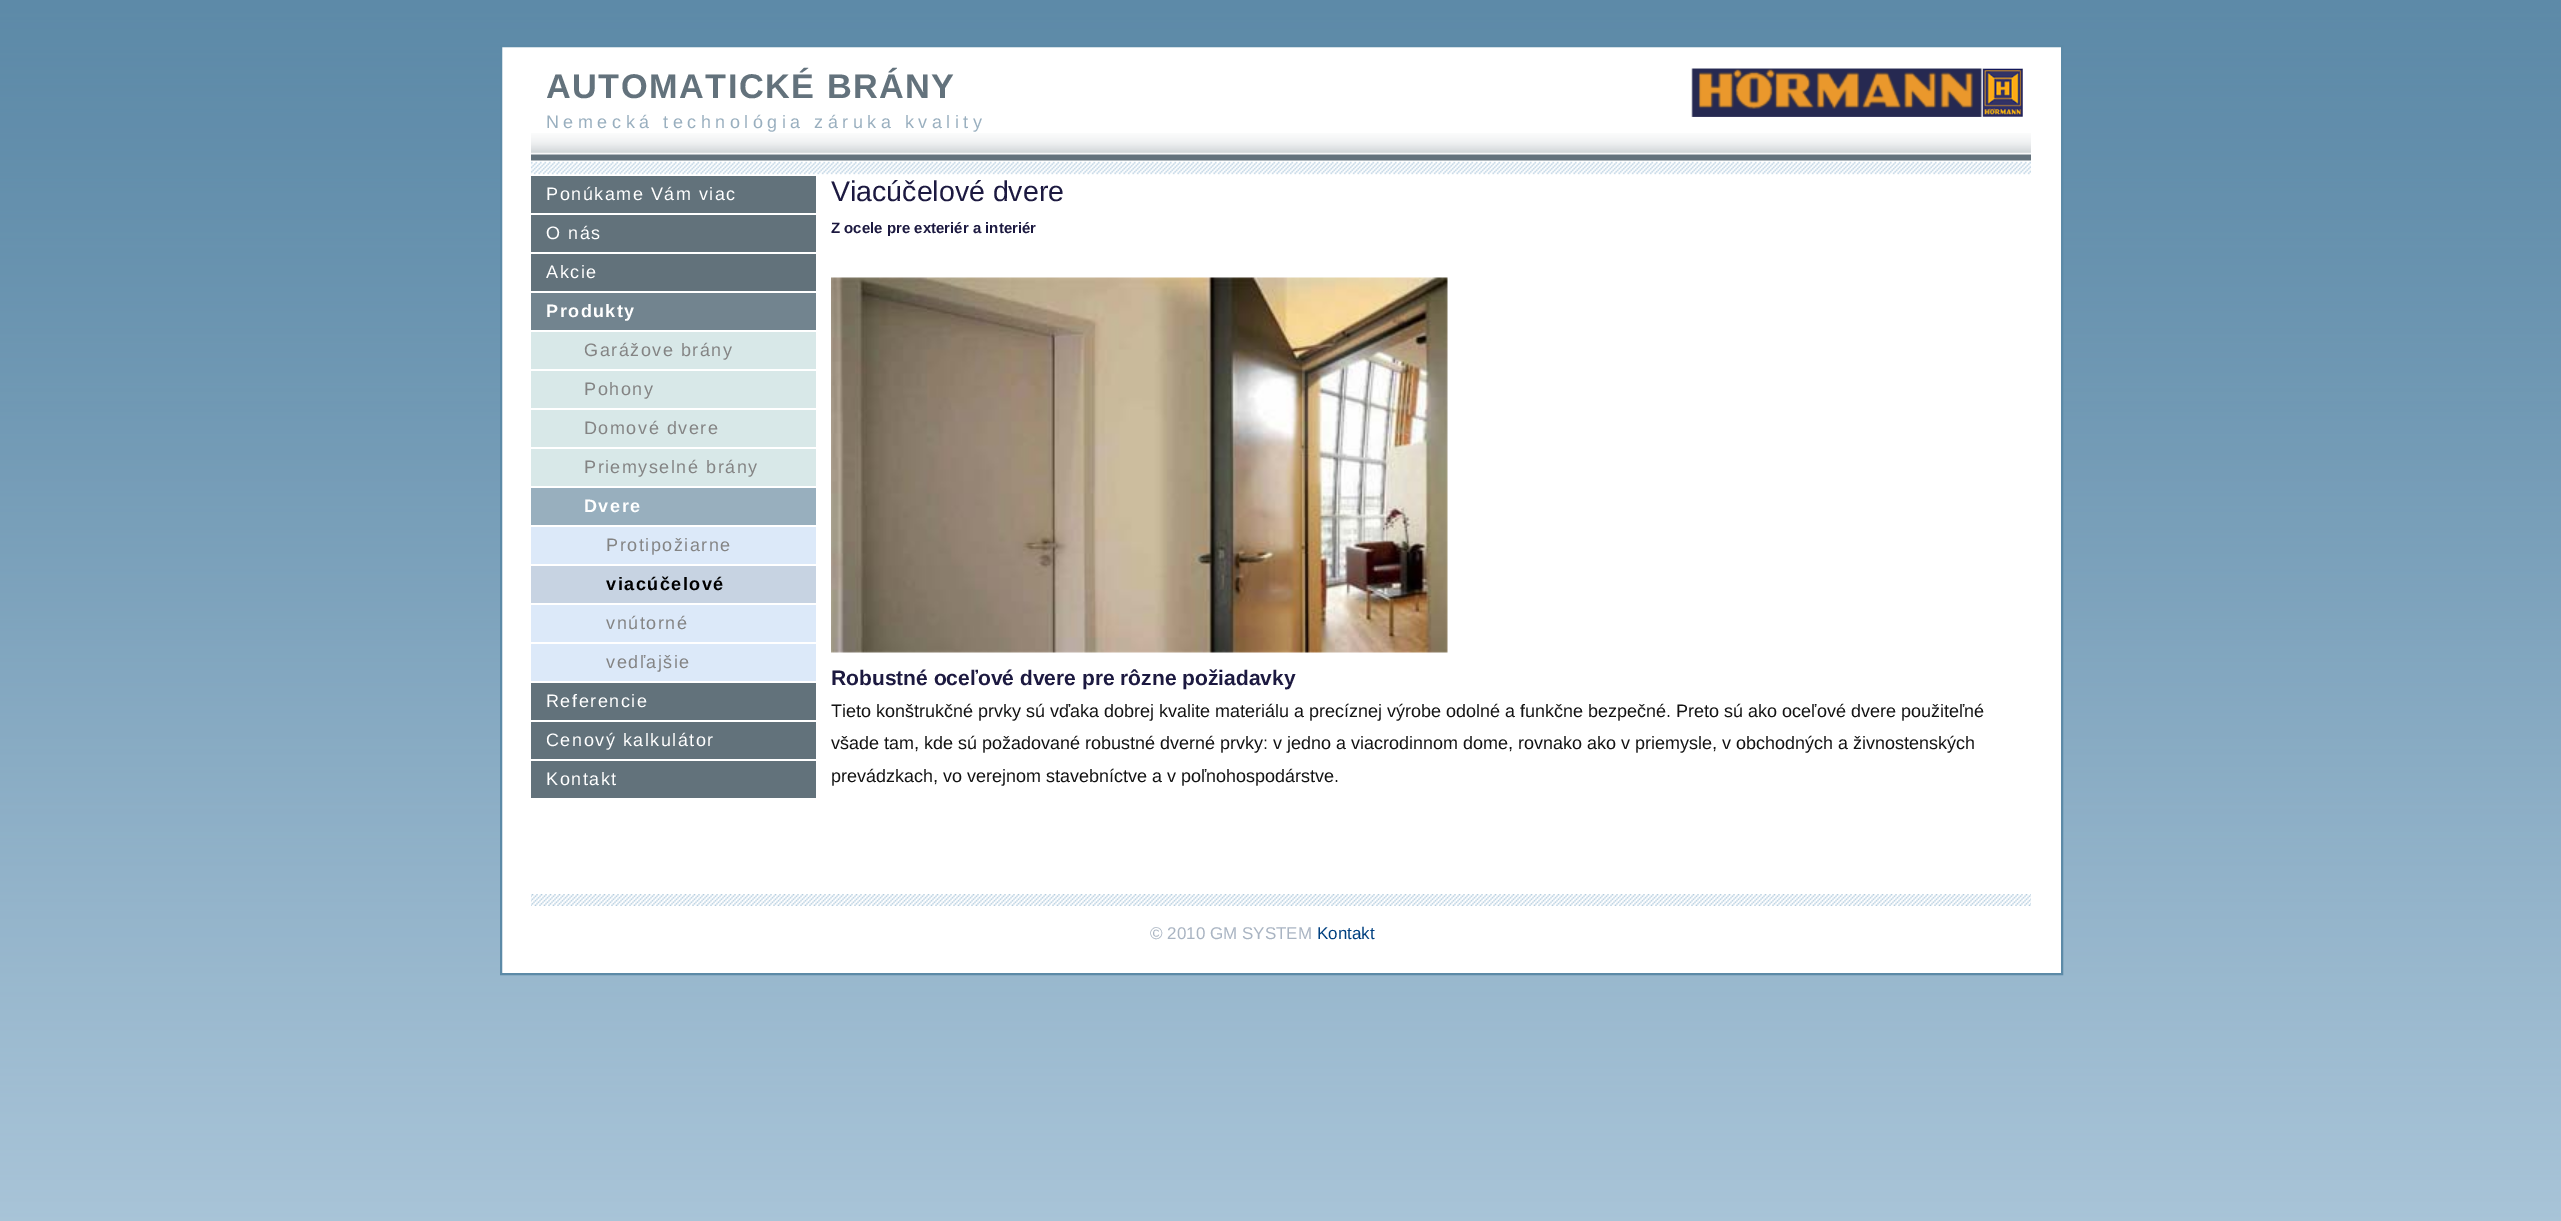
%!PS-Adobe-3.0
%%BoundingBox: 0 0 2561 1221
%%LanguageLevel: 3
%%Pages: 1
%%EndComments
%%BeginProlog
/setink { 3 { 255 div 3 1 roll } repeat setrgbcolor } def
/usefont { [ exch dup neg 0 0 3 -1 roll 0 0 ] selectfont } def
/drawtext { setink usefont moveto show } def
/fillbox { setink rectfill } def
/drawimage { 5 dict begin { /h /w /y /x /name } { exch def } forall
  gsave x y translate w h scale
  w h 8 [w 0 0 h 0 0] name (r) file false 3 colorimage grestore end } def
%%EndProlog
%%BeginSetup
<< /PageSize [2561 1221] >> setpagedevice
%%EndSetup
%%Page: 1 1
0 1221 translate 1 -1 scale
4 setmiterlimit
0 0 2561 1221 255 255 255 fillbox
(assets/img1.rgb) 0 0 2561 1221 drawimage
501 46 moveto 2062 46 lineto 2062 974 lineto 501 974 lineto closepath gsave fill grestore
92 138 167 setink
2 setlinewidth
stroke
(assets/img2.rgb) 531 133 1500 42 drawimage
/LiberationSans-Bold 34.25 usefont
99 114 124 setink
546 98 moveto 1.5 0 (AUTOMATICKÉ BRÁNY) ashow
(assets/img3.rgb) 1691 68 332 49 drawimage
/LiberationSans-Regular 18 usefont
153 175 191 setink
546 128 moveto 4.5 0 (Nemecká technológia záruka kvality) ashow
531 176 285 37 98 114 123 fillbox
255 255 255 setink
546 200 moveto 1.5 0 (Ponúkame Vám viac) ashow
531 215 285 37 98 114 123 fillbox
255 255 255 setink
546 239 moveto 1.5 0 (O nás) ashow
531 254 285 37 98 114 123 fillbox
255 255 255 setink
546 278 moveto 1.5 0 (Akcie) ashow
531 293 285 37 114 132 143 fillbox
/LiberationSans-Bold 18 usefont
255 255 255 setink
546 317 moveto 1.5 0 (Produkty) ashow
531 332 285 37 216 232 232 fillbox
/LiberationSans-Regular 18 usefont
132 132 132 setink
584 356 moveto 1.5 0 (Garážove brány) ashow
531 371 285 37 216 232 232 fillbox
132 132 132 setink
584 395 moveto 1.5 0 (Pohony) ashow
531 410 285 37 216 232 232 fillbox
132 132 132 setink
584 434 moveto 1.5 0 (Domové dvere) ashow
531 449 285 37 216 232 232 fillbox
132 132 132 setink
584 473 moveto 1.5 0 (Priemyselné brány) ashow
531 488 285 37 152 175 190 fillbox
/LiberationSans-Bold 18 usefont
255 255 255 setink
584 512 moveto 1.5 0 (Dvere) ashow
531 527 285 37 220 233 249 fillbox
/LiberationSans-Regular 18 usefont
132 132 132 setink
606 551 moveto 1.5 0 (Protipožiarne) ashow
531 566 285 37 199 211 226 fillbox
/LiberationSans-Bold 18 usefont
0 0 0 setink
606 590 moveto 1.5 0 (viacúčelové) ashow
531 605 285 37 220 233 249 fillbox
/LiberationSans-Regular 18 usefont
132 132 132 setink
606 629 moveto 1.5 0 (vnútorné) ashow
531 644 285 37 220 233 249 fillbox
132 132 132 setink
606 668 moveto 1.5 0 (vedľajšie) ashow
531 683 285 37 98 114 123 fillbox
255 255 255 setink
546 707 moveto 1.5 0 (Referencie) ashow
531 722 285 37 98 114 123 fillbox
255 255 255 setink
546 746 moveto 1.5 0 (Cenový kalkulátor) ashow
531 761 285 37 98 114 123 fillbox
255 255 255 setink
546 785 moveto 1.5 0 (Kontakt) ashow
(Viacúčelové dvere) 831 201 /LiberationSans-Regular 28.5 28 25 64 drawtext
(Z ocele pre exteriér a interiér) 831 233 /LiberationSans-Bold 15 28 25 64 drawtext
(assets/img4.rgb) 831 277 617 376 drawimage
(Robustné oceľové dvere pre rôzne požiadavky) 831 685 /LiberationSans-Bold 21 28 25 64 drawtext
(Tieto konštrukčné prvky sú vďaka dobrej kvalite materiálu a precíznej výrobe odolné a funkčne bezpečné. Preto sú ako oceľové dvere použiteľné) 831 717 /LiberationSans-Regular 18 19 19 19 drawtext
(všade tam, kde sú požadované robustné dverné prvky: v jedno a viacrodinnom dome, rovnako ako v priemysle, v obchodných a živnostenských) 831 749 /LiberationSans-Regular 18 19 19 19 drawtext
(prevádzkach, vo verejnom stavebníctve a v poľnohospodárstve.) 831 782 /LiberationSans-Regular 18 19 19 19 drawtext
(assets/img5.rgb) 531 894 1500 12 drawimage
(© 2010 GM SYSTEM) 1150 939 /LiberationSans-Regular 17 169 180 194 drawtext
(Kontakt) 1317 939 /LiberationSans-Regular 17 0 64 128 drawtext
showpage
%%EOF
